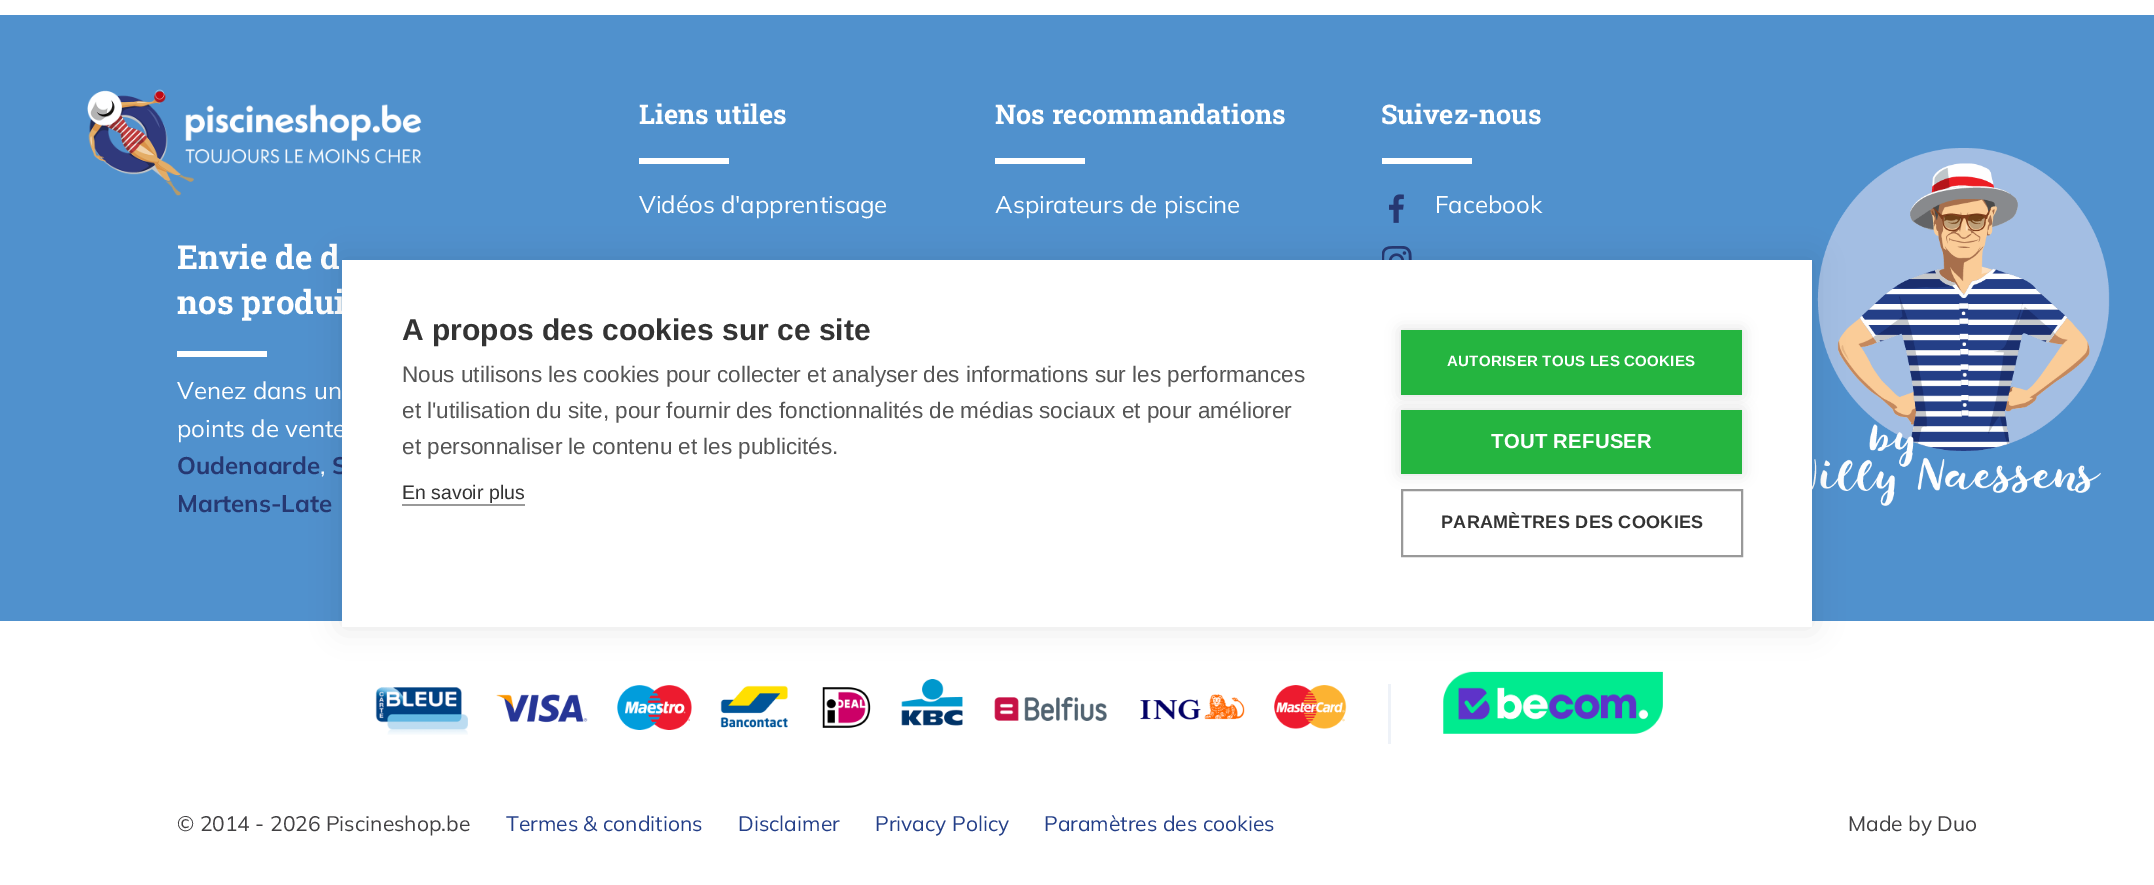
%!PS-Adobe-3.0
%%BoundingBox: 0 0 2154 885
%%LanguageLevel: 3
%%Pages: 1
%%EndComments
%%BeginProlog
/setink { 3 { 255 div 3 1 roll } repeat setrgbcolor } def
/usefont { [ exch dup neg 0 0 3 -1 roll 0 0 ] selectfont } def
/drawtext { setink usefont moveto show } def
/fillbox { setink rectfill } def
/setalpha { dup .setfillconstantalpha .setstrokeconstantalpha } def
/rrect { 5 dict begin { /r /h /w /y /x } { exch def } forall
  x r add y moveto x w add y 2 copy h add r arct x w add y h add x 1 index r arct
  x y h add x y r arct x y 2 copy exch w add exch r arct closepath end } def
/softshadow { 12 dict begin { /a /b /q /h /w /y /x } { exch def } forall gsave /was 0 def
  9 -2 -9 { dup b mul 4 div /e exch def 1 sub .425 mul 2.718 exch exp 1 add a .99 .min exch div /now exch def
    1 1 now sub 1 was sub div sub setalpha /was now def
    w h .min e 2 mul add 0 gt { x e sub y e sub w e 2 mul add h e 2 mul add
      q e add b .6 mul add w h .min 2 div e add .min 0 .max rrect fill } if } for grestore end } def
/drawimage { 5 dict begin { /h /w /y /x /name } { exch def } forall
  gsave x y translate w h scale
  w h 8 [w 0 0 h 0 0] name (r) file false 3 colorimage grestore end } def
%%EndProlog
%%BeginSetup
<< /PageSize [2154 885] /PageUsesTransparency true >> setpagedevice
%%EndSetup
%%Page: 1 1
0 .pushpdf14devicefilter
0 885 translate 1 -1 scale
4 setmiterlimit
0 0 2154 885 255 255 255 fillbox
0 15 2154 606 80 145 205 fillbox
(Liens utiles) 639 124 /RobotoSlab-Bold 27 255 255 255 drawtext
639 158 90 6 255 255 255 fillbox
(Vidéos d'apprentisage) 639 213 /Mulish-ExtraLight 24 255 255 255 drawtext
(Nos recommandations) 995 124 /RobotoSlab-Bold 27 255 255 255 drawtext
995 158 90 6 255 255 255 fillbox
(Aspirateurs de piscine) 995 213 /Mulish-ExtraLight 24 255 255 255 drawtext
(Suivez-nous) 1381 124 /RobotoSlab-Bold 27 255 255 255 drawtext
1382 158 90 6 255 255 255 fillbox
(assets/img1.rgb) 1389 194 15 29 drawimage
(Facebook) 1435 213 /Mulish-ExtraLight 24 255 255 255 drawtext
(assets/img2.rgb) 1382 246 30 14 drawimage
(assets/img3.rgb) 87 89 335 107 drawimage
(Envie de d) 177 269 /RobotoSlab-Bold 33 255 255 255 drawtext
(nos produi) 177 314 /RobotoSlab-Bold 33 255 255 255 drawtext
177 351 90 6 255 255 255 fillbox
(Venez dans un) 177 399 /Mulish-ExtraLight 24 255 255 255 drawtext
(points de vente) 177 437 /Mulish-ExtraLight 24 255 255 255 drawtext
(Oudenaarde) 177 474 /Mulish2-ExtraLight 24 38 56 114 drawtext
(,) 320 474 /Mulish-ExtraLight 24 255 255 255 drawtext
(S) 332 474 /Mulish2-ExtraLight 24 38 56 114 drawtext
(Martens-Late) 177 512 /Mulish2-ExtraLight 24 38 56 114 drawtext
(assets/img4.rgb) 1812 148 298 358 drawimage
(assets/img5.rgb) 375 687 93 48 drawimage
(assets/img6.rgb) 496 694 92 29 drawimage
(assets/img7.rgb) 617 685 75 45 drawimage
(assets/img8.rgb) 720 685 68 43 drawimage
(assets/img9.rgb) 822 687 49 41 drawimage
(assets/img10.rgb) 901 679 62 47 drawimage
(assets/img11.rgb) 994 697 113 24 drawimage
(assets/img12.rgb) 1140 694 105 26 drawimage
(assets/img13.rgb) 1274 685 73 44 drawimage
1388 684 3 60 238 242 248 fillbox
(assets/img14.rgb) 1443 671 220 63 drawimage
(© 2014 - 2026 Piscineshop.be) 177 831 /Mulish-ExtraLight 21 65 64 66 drawtext
(Termes & conditions) 506 831 /Mulish-ExtraLight 21 36 63 136 drawtext
(Disclaimer) 738 831 /Mulish-ExtraLight 21 36 63 136 drawtext
(Privacy Policy) 875 831 /Mulish-ExtraLight 21 36 63 136 drawtext
(Paramètres des cookies) 1044 831 /Mulish-ExtraLight 21 36 63 136 drawtext
(Made by Duo) 1848 831 /Mulish-ExtraLight 21 65 64 66 drawtext
0 0 0 setink
342 260 1470 367 0 15 0.1 softshadow
342 260 1470 367 255 255 255 fillbox
(A propos des cookies sur ce site) 402 340 /LiberationSans-Bold 30 51 51 51 drawtext
(Nous utilisons les cookies pour collecter et analyser des informations sur les performances) 402 382 /LiberationSans-Regular 22.5 85 85 85 drawtext
(et l'utilisation du site, pour fournir des fonctionnalités de médias sociaux et pour améliorer) 402 418 /LiberationSans-Regular 22.5 85 85 85 drawtext
(et personnaliser le contenu et les publicités.) 402 454 /LiberationSans-Regular 22.5 85 85 85 drawtext
(En savoir plus) 402 499 /LiberationSans-Regular 19.5 51 51 51 drawtext
402 504 123 2 153 153 153 fillbox
0 0 0 setink
1401 330 341 65 0 7.5 0.12 softshadow
1401 330 341 65 37 181 64 fillbox
/LiberationSans-Bold 15 usefont
255 255 255 setink
1447 366 moveto 0.3 0 (AUTORISER TOUS LES COOKIES) ashow
0 0 0 setink
1401 410 341 64 0 7.5 0.12 softshadow
1401 410 341 64 37 181 64 fillbox
/LiberationSans-Bold 20.25 usefont
255 255 255 setink
1491 448 moveto 0.3 0 (TOUT REFUSER) ashow
153 153 153 setink
2 setlinewidth
1402 490 340 66 rectstroke
/LiberationSans-Bold 18 usefont
51 51 51 setink
1441 528 moveto 0.3 0 (PARAMÈTRES DES COOKIES) ashow
.poppdf14devicefilter showpage
%%EOF
